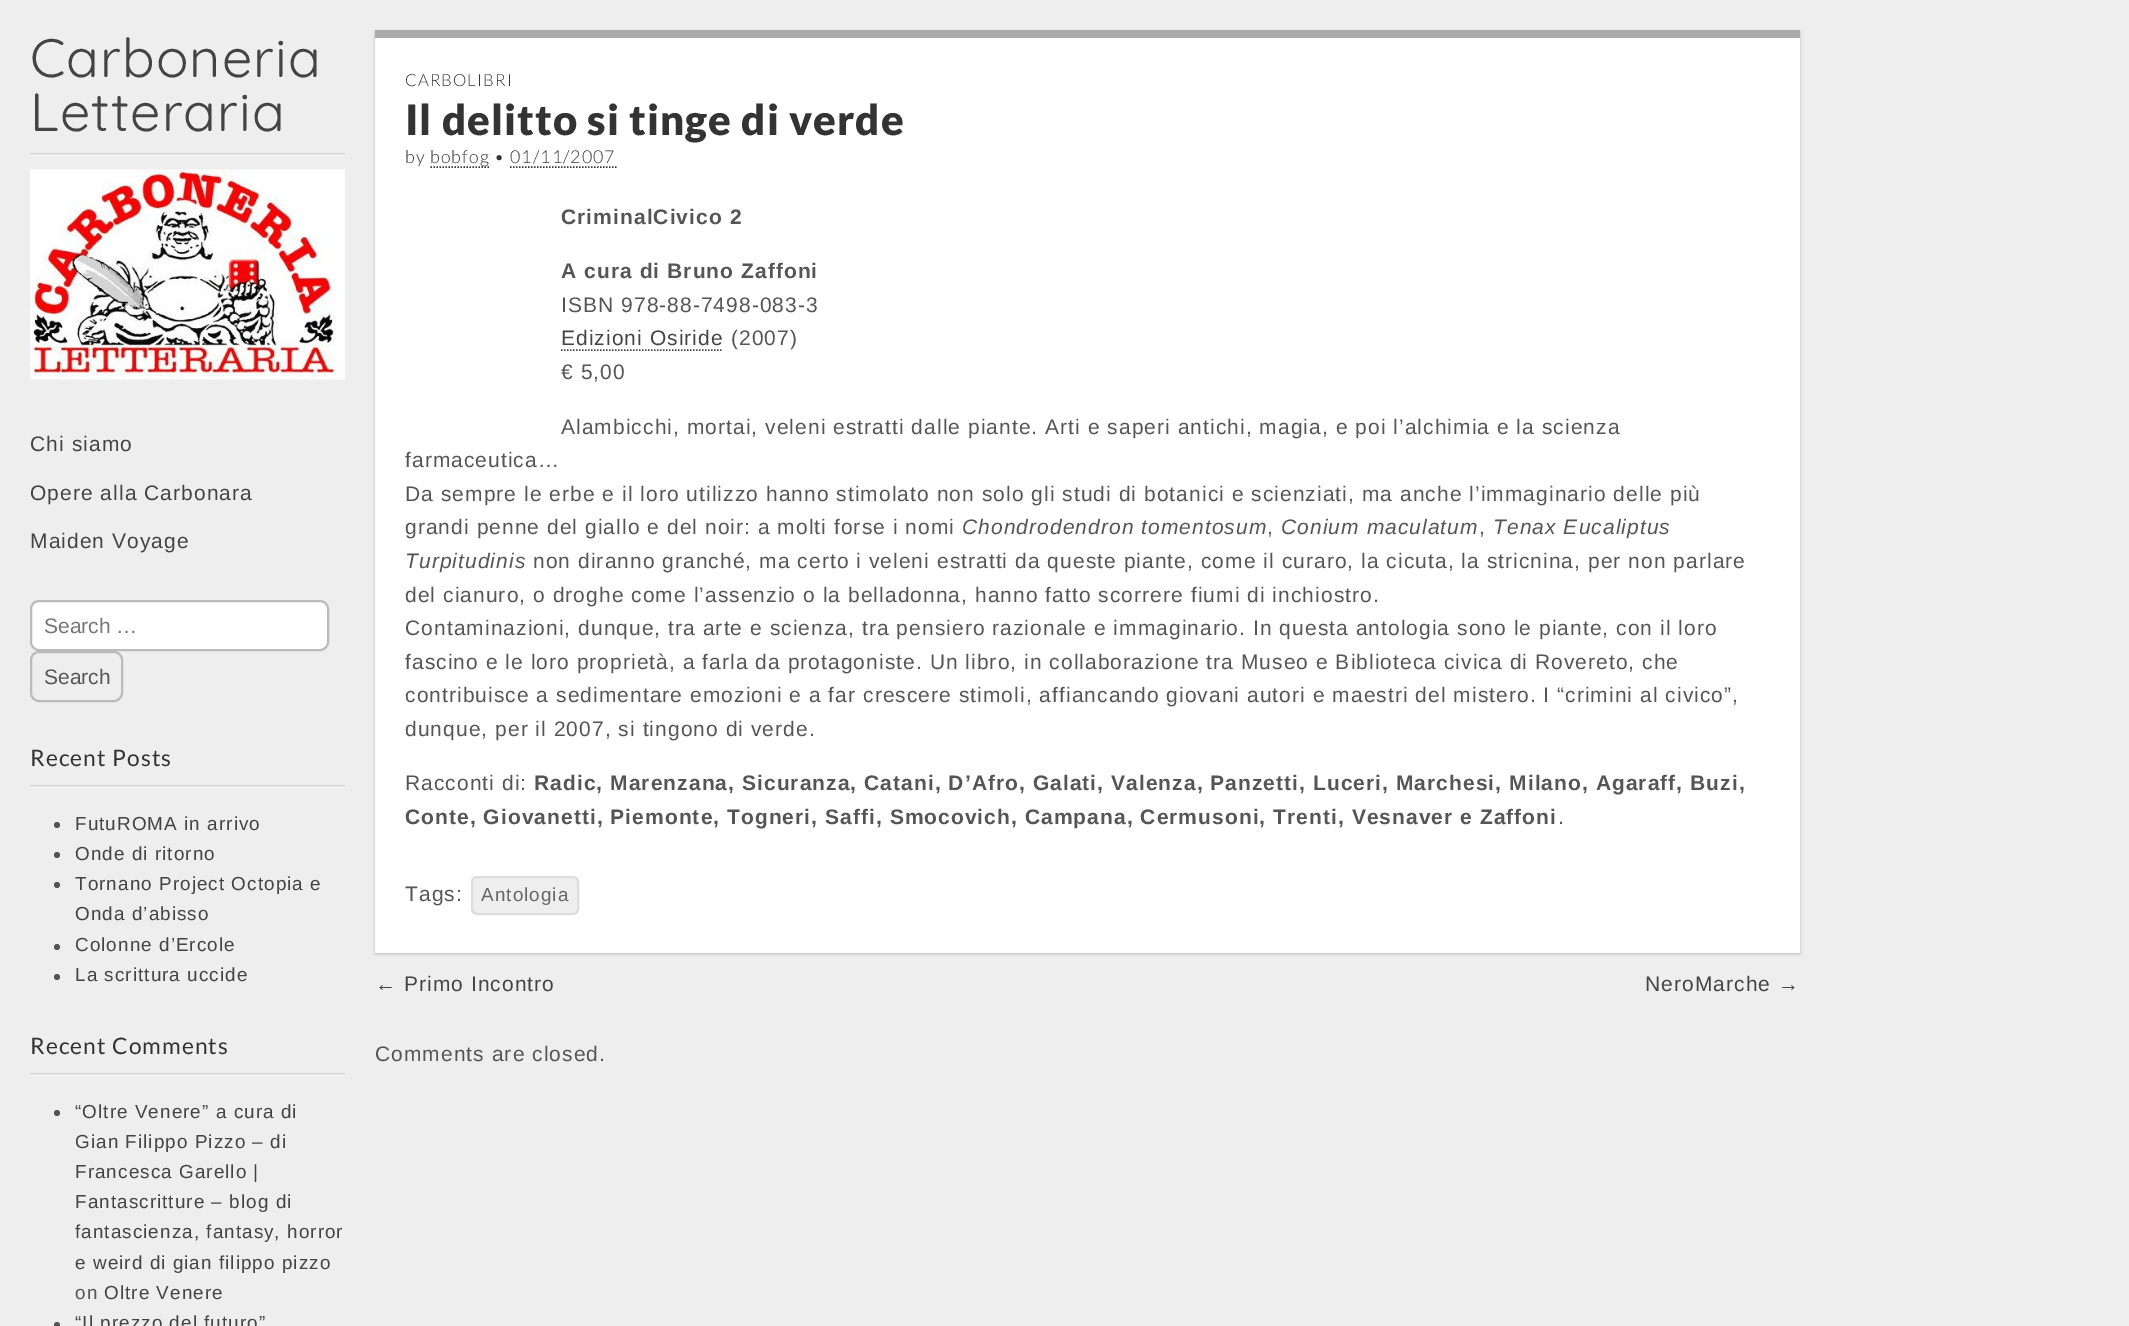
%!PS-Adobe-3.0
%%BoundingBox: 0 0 2129 1326
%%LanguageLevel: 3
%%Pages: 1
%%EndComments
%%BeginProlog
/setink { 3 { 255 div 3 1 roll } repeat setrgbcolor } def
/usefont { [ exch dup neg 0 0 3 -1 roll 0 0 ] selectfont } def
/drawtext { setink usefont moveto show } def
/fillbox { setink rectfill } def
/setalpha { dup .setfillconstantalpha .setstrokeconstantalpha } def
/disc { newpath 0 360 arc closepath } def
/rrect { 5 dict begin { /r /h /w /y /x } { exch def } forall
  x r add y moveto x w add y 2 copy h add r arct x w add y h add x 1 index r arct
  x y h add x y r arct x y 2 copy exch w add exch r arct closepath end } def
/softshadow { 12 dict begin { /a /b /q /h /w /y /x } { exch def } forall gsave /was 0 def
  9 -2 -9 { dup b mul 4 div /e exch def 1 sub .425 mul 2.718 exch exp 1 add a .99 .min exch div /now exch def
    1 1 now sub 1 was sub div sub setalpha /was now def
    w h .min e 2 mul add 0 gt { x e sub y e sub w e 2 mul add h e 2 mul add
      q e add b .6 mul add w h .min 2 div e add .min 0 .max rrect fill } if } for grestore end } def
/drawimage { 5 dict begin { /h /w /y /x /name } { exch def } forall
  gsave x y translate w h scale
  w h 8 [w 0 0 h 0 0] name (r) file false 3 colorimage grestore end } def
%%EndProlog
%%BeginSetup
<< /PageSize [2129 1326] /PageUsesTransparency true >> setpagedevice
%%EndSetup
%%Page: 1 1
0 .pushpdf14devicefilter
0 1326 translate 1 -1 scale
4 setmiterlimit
0 0 2129 1326 238 238 238 fillbox
30 153 315 1 214 214 214 fillbox
30 1073 315 1 214 214 214 fillbox
30 785 315 1 214 214 214 fillbox
30 155 315 1 252 252 252 fillbox
30 154 315 1 227 227 227 fillbox
/Quicksand-Light 54 usefont
68 68 68 setink
30 77 moveto 1.05 0 (Carboneria) ashow
30 131 moveto 1.05 0 (Letteraria) ashow
(assets/img1.rgb) 30 169 315 211 drawimage
/LiberationSans-Regular 21 usefont
30 451 moveto 1.05 0 (Chi siamo) ashow
30 500 moveto 1.05 0 (Opere alla Carbonara) ashow
30 548 moveto 1.05 0 (Maiden Voyage) ashow
255 255 255 setink
31 601 297 49 8 rrect gsave fill grestore
187 187 187 setink
2 setlinewidth
stroke
(Search …) 44 633 /LiberationSans-Regular 21 117 117 117 drawtext
187 187 187 setink
31 652 91 49 8 rrect stroke
(Search) 44 684 /LiberationSans-Regular 21 85 85 85 drawtext
30 787 315 1 252 252 252 fillbox
30 786 315 1 227 227 227 fillbox
/Lato-Regular 22.75 usefont
51 51 51 setink
30 766 moveto 1.05 0 (Recent Posts) ashow
85 85 85 setink
57 825 3 disc fill
/LiberationSans-Regular 18.9 usefont
68 68 68 setink
75 830 moveto 1.05 0 (FutuROMA in arrivo) ashow
85 85 85 setink
57 855 3 disc fill
68 68 68 setink
75 860 moveto 1.05 0 (Onde di ritorno) ashow
85 85 85 setink
57 885 3 disc fill
68 68 68 setink
75 890 moveto 1.05 0 (Tornano Project Octopia e) ashow
75 920 moveto 1.05 0 (Onda d’abisso) ashow
85 85 85 setink
57 947 3 disc fill
68 68 68 setink
75 951 moveto 1.05 0 (Colonne d’Ercole) ashow
85 85 85 setink
57 977 3 disc fill
68 68 68 setink
75 981 moveto 1.05 0 (La scrittura uccide) ashow
30 1075 315 1 252 252 252 fillbox
30 1074 315 1 227 227 227 fillbox
/Lato-Regular 22.75 usefont
51 51 51 setink
30 1054 moveto 1.05 0 (Recent Comments) ashow
85 85 85 setink
57 1113 3 disc fill
/LiberationSans-Regular 18.9 usefont
68 68 68 setink
75 1118 moveto 1.05 0 (“Oltre Venere” a cura di) ashow
75 1148 moveto 1.05 0 (Gian Filippo Pizzo – di) ashow
75 1178 moveto 1.05 0 (Francesca Garello |) ashow
75 1208 moveto 1.05 0 (Fantascritture – blog di) ashow
75 1238 moveto 1.05 0 (fantascienza, fantasy, horror) ashow
75 1269 moveto 1.05 0 (e weird di gian filippo pizzo) ashow
85 85 85 setink
75 1299 moveto 1.05 0 (on) ashow
68 68 68 setink
104 1299 moveto 1.05 0 (Oltre Venere) ashow
85 85 85 setink
57 1325 3 disc fill
68 68 68 setink
75 1329 moveto 1.05 0 (“Il prezzo del futuro”) ashow
0 0 0 setink
375 32 1425 922 0 1.5 0.2 softshadow
375 38 1425 915 255 255 255 fillbox
375 30 1425 8 170 170 170 fillbox
/Lato-Light 16.75 usefont
51 51 51 setink
405 86 moveto 1.05 0 (CARBOLIBRI) ashow
/Lato-Black 42 usefont
405 135 moveto 1.05 0 (Il delitto si tinge di verde) ashow
/Lato-Light 17.8 usefont
405 163 moveto 1.05 0 (by) ashow
1.5 setlinewidth
[1.5 1.5] 0 setdash
430.5 167 moveto 490.5 167 lineto stroke
430 163 moveto 1.05 0 (bobfog • 01/11/2007) ashow
510 167 moveto 616.5 167 lineto stroke
/LiberationSans-Bold 21 usefont
85 85 85 setink
561 224 moveto 1.05 0 (CriminalCivico 2) ashow
561 278 moveto 1.05 0 (A cura di Bruno Zaffoni) ashow
/LiberationSans-Regular 21 usefont
561 312 moveto 1.05 0 (ISBN 978-88-7498-083-3) ashow
68 68 68 setink
561 345 moveto 1.05 0 (Edizioni Osiride) ashow
561 350 moveto 723 350 lineto stroke
85 85 85 setink
731 345 moveto 1.05 0 (\(2007\)) ashow
561 379 moveto 1.05 0 (€ 5,00) ashow
561 434 moveto 1.05 0 (Alambicchi, mortai, veleni estratti dalle piante. Arti e saperi antichi, magia, e poi l’alchimia e la scienza) ashow
405 467 moveto 1.05 0 (farmaceutica…) ashow
405 501 moveto 1.05 0 (Da sempre le erbe e il loro utilizzo hanno stimolato non solo gli studi di botanici e scienziati, ma anche l’immaginario delle più) ashow
405 534 moveto 1.05 0 (grandi penne del giallo e del noir: a molti forse i nomi) ashow
/LiberationSans-Italic 21 usefont
962 534 moveto 1.05 0 (Chondrodendron tomentosum) ashow
/LiberationSans-Regular 21 usefont
1267 534 moveto 1.05 0 (,) ashow
/LiberationSans-Italic 21 usefont
1281 534 moveto 1.05 0 (Conium maculatum) ashow
/LiberationSans-Regular 21 usefont
1479 534 moveto 1.05 0 (,) ashow
/LiberationSans-Italic 21 usefont
1493 534 moveto 1.05 0 (Tenax Eucaliptus) ashow
405 568 moveto 1.05 0 (Turpitudinis) ashow
/LiberationSans-Regular 21 usefont
533 568 moveto 1.05 0 (non diranno granché, ma certo i veleni estratti da queste piante, come il curaro, la cicuta, la stricnina, per non parlare) ashow
405 602 moveto 1.05 0 (del cianuro, o droghe come l’assenzio o la belladonna, hanno fatto scorrere fiumi di inchiostro.) ashow
405 635 moveto 1.05 0 (Contaminazioni, dunque, tra arte e scienza, tra pensiero razionale e immaginario. In questa antologia sono le piante, con il loro) ashow
405 669 moveto 1.05 0 (fascino e le loro proprietà, a farla da protagoniste. Un libro, in collaborazione tra Museo e Biblioteca civica di Rovereto, che) ashow
405 702 moveto 1.05 0 (contribuisce a sedimentare emozioni e a far crescere stimoli, affiancando giovani autori e maestri del mistero. I “crimini al civico”,) ashow
405 736 moveto 1.05 0 (dunque, per il 2007, si tingono di verde.) ashow
405 790 moveto 1.05 0 (Racconti di:) ashow
/LiberationSans-Bold 21 usefont
534 790 moveto 1.05 0 (Radic, Marenzana, Sicuranza, Catani, D’Afro, Galati, Valenza, Panzetti, Luceri, Marchesi, Milano, Agaraff, Buzi,) ashow
405 824 moveto 1.05 0 (Conte, Giovanetti, Piemonte, Togneri, Saffi, Smocovich, Campana, Cermusoni, Trenti, Vesnaver e Zaffoni) ashow
/LiberationSans-Regular 21 usefont
1558 824 moveto 1.05 0 (.) ashow
405 901 moveto 1.05 0 (Tags:) ashow
238 238 238 setink
472 877 106 37 5 rrect gsave fill grestore
221 221 221 setink
2 setlinewidth
[] 0 setdash
stroke
/LiberationSans-Regular 18.9 usefont
102 102 102 setink
481 901 moveto 1.05 0 (Antologia) ashow
/LiberationSans-Regular 21 usefont
68 68 68 setink
375 991 moveto 1.05 0 (← Primo Incontro) ashow
1645 991 moveto 1.05 0 (NeroMarche →) ashow
85 85 85 setink
375 1061 moveto 1.05 0 (Comments are closed.) ashow
.poppdf14devicefilter showpage
%%EOF
